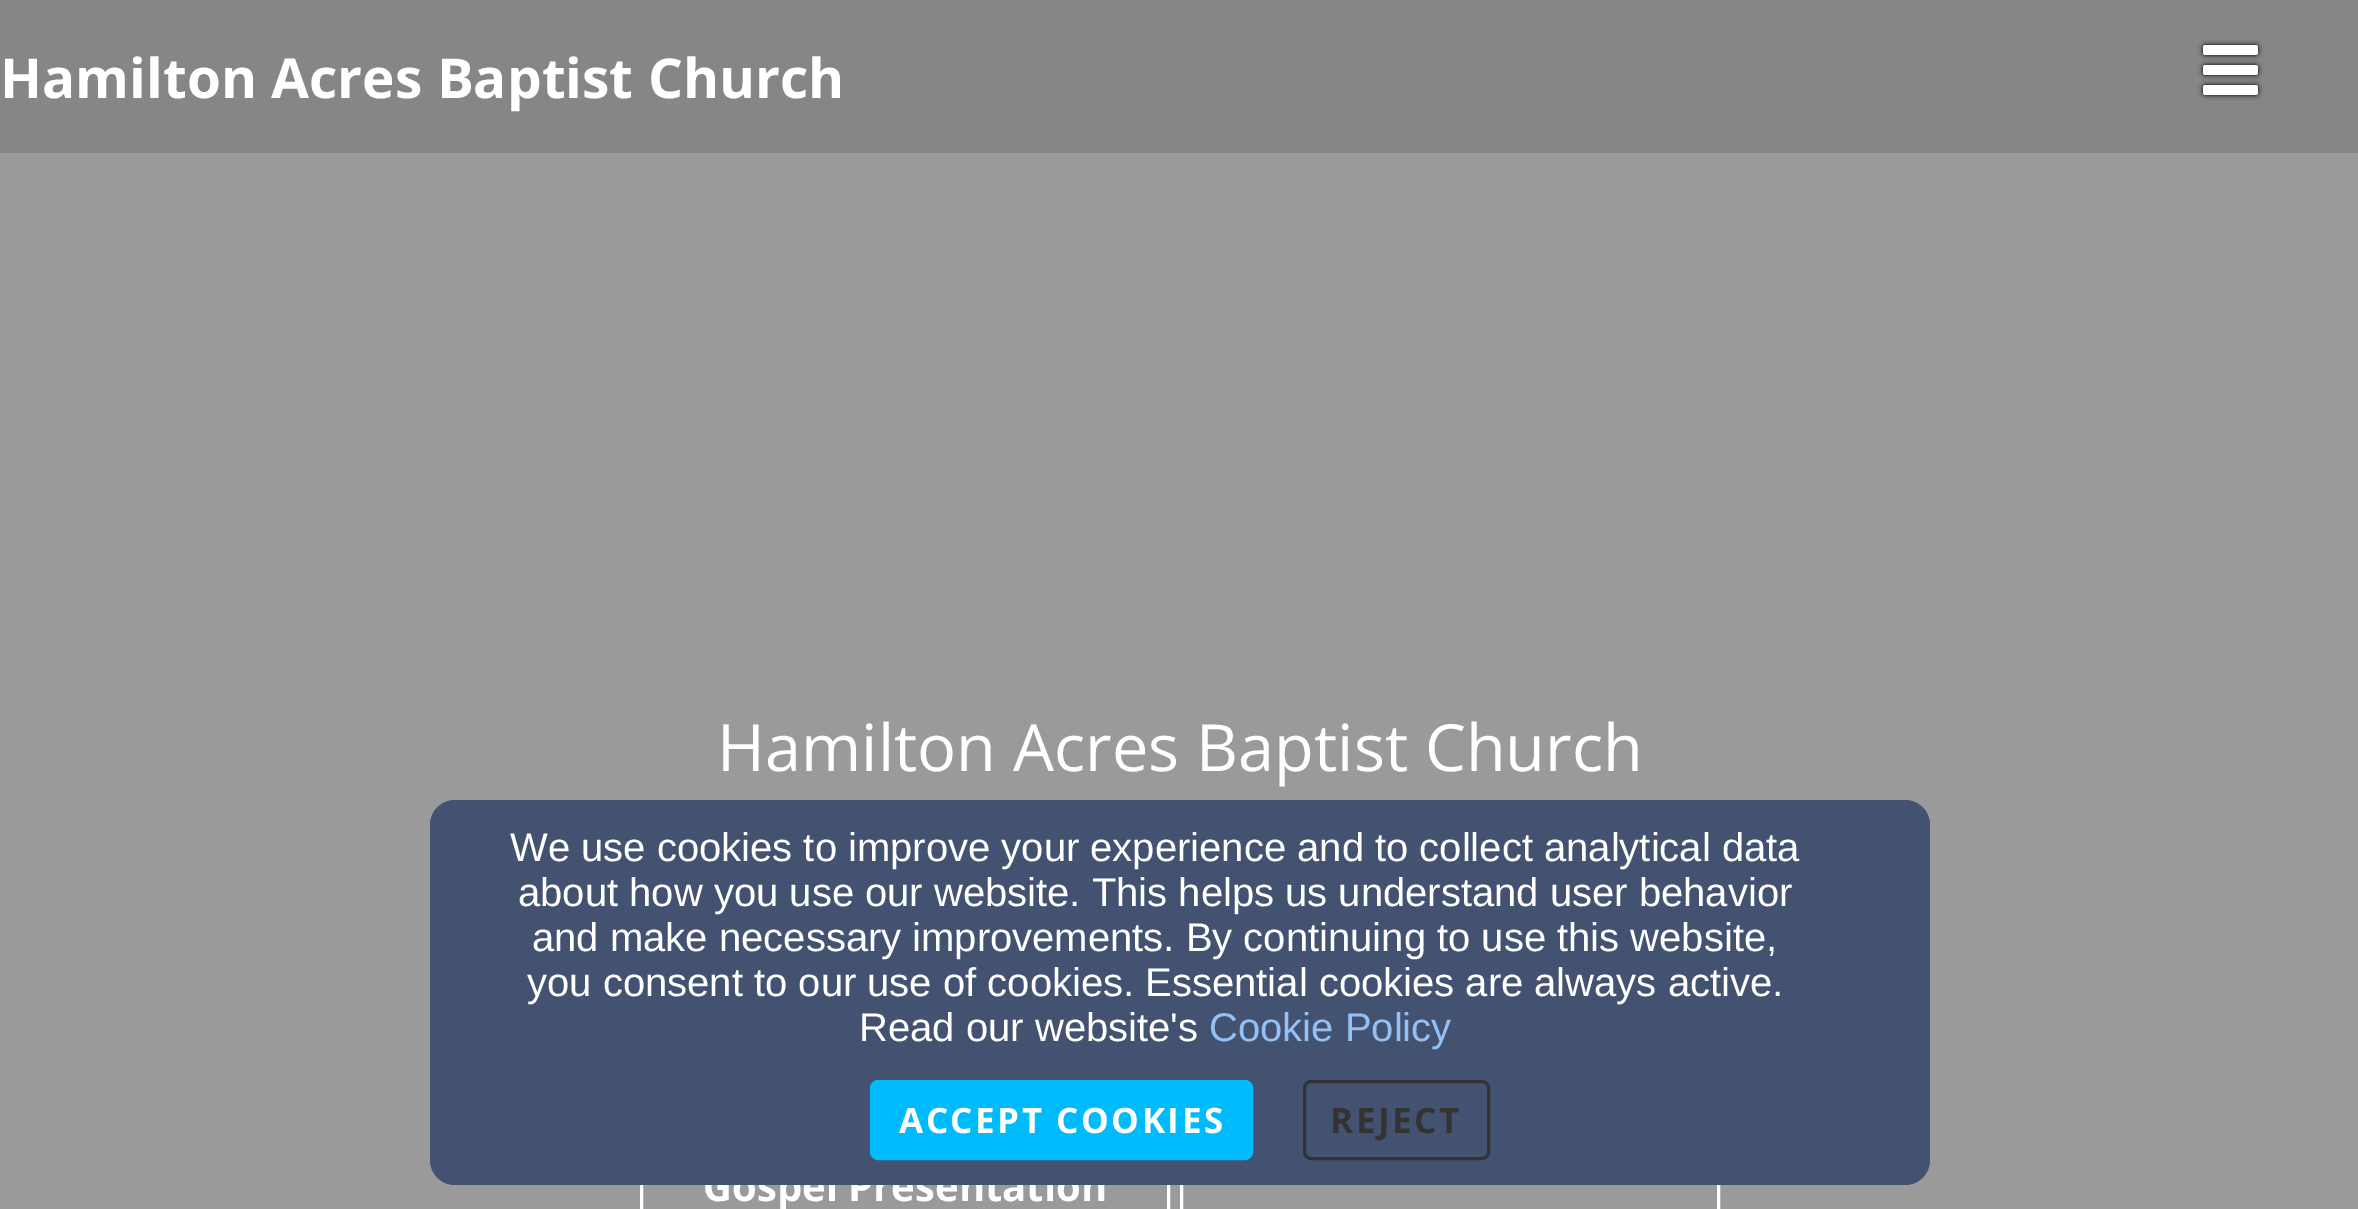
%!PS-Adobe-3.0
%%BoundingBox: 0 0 2358 1209
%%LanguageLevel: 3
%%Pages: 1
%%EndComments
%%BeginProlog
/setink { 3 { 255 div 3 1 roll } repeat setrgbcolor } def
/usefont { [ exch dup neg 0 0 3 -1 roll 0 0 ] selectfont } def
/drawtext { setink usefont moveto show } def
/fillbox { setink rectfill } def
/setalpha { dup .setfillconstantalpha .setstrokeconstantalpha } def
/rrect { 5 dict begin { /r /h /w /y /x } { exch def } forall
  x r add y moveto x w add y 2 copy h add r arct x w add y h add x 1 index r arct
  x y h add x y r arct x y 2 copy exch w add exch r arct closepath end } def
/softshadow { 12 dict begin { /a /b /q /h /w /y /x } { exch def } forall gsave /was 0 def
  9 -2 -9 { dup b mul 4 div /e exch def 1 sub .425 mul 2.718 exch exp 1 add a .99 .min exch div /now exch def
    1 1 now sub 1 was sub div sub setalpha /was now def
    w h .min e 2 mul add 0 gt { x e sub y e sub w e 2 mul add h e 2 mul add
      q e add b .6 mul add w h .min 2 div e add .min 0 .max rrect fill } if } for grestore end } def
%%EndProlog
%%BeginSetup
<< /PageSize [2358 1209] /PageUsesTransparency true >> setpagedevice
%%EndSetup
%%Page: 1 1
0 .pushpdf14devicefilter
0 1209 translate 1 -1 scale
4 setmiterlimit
0 0 2358 1209 154 154 154 fillbox
0 0 2358 153 134 134 134 fillbox
(Hamilton Acres Baptist Church) 0 98 /OpenSans-Bold 55 255 255 255 drawtext
0 0 0 setink
2203 45 55 10 2.5 2.5 1 softshadow
255 255 255 setink
2203 45 55 10 2.5 rrect fill
0 0 0 setink
2203 65 55 10 2.5 2.5 1 softshadow
255 255 255 setink
2203 65 55 10 2.5 rrect fill
0 0 0 setink
2203 85 55 10 2.5 2.5 1 softshadow
255 255 255 setink
2203 85 55 10 2.5 rrect fill
(Hamilton Acres Baptist Church) 717 771 /OpenSans-Regular 65 255 255 255 drawtext
3 setlinewidth
641.5 1134.5 527 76 rectstroke
(Gospel Presentation) 703 1201 /OpenSans-Bold 40 255 255 255 drawtext
1181.5 1134.5 537 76 rectstroke
67 82 112 setink
430 800 1500 385 25 rrect fill
(We use cookies to improve your experience and to collect analytical data) 510 861 /LiberationSans-Regular 40 255 255 255 drawtext
(about how you use our website. This helps us understand user behavior) 518 906 /LiberationSans-Regular 40 255 255 255 drawtext
(and make necessary improvements. By continuing to use this website,) 532 951 /LiberationSans-Regular 40 255 255 255 drawtext
(you consent to our use of cookies. Essential cookies are always active.) 527 996 /LiberationSans-Regular 40 255 255 255 drawtext
(Read our website's) 859 1041 /LiberationSans-Regular 40 255 255 255 drawtext
(Cookie Policy) 1209 1041 /LiberationSans-Regular 40 148 192 243 drawtext
0 187 252 setink
871.5 1081.5 380 77 6.5 rrect gsave fill grestore
stroke
/OpenSans-Bold 35 usefont
255 255 255 setink
899 1133 moveto 2.5 0 (ACCEPT COOKIES) ashow
51 51 51 setink
1304.5 1081.5 184 77 6.5 rrect stroke
1330 1133 moveto 2.5 0 (REJECT) ashow
.poppdf14devicefilter showpage
%%EOF
